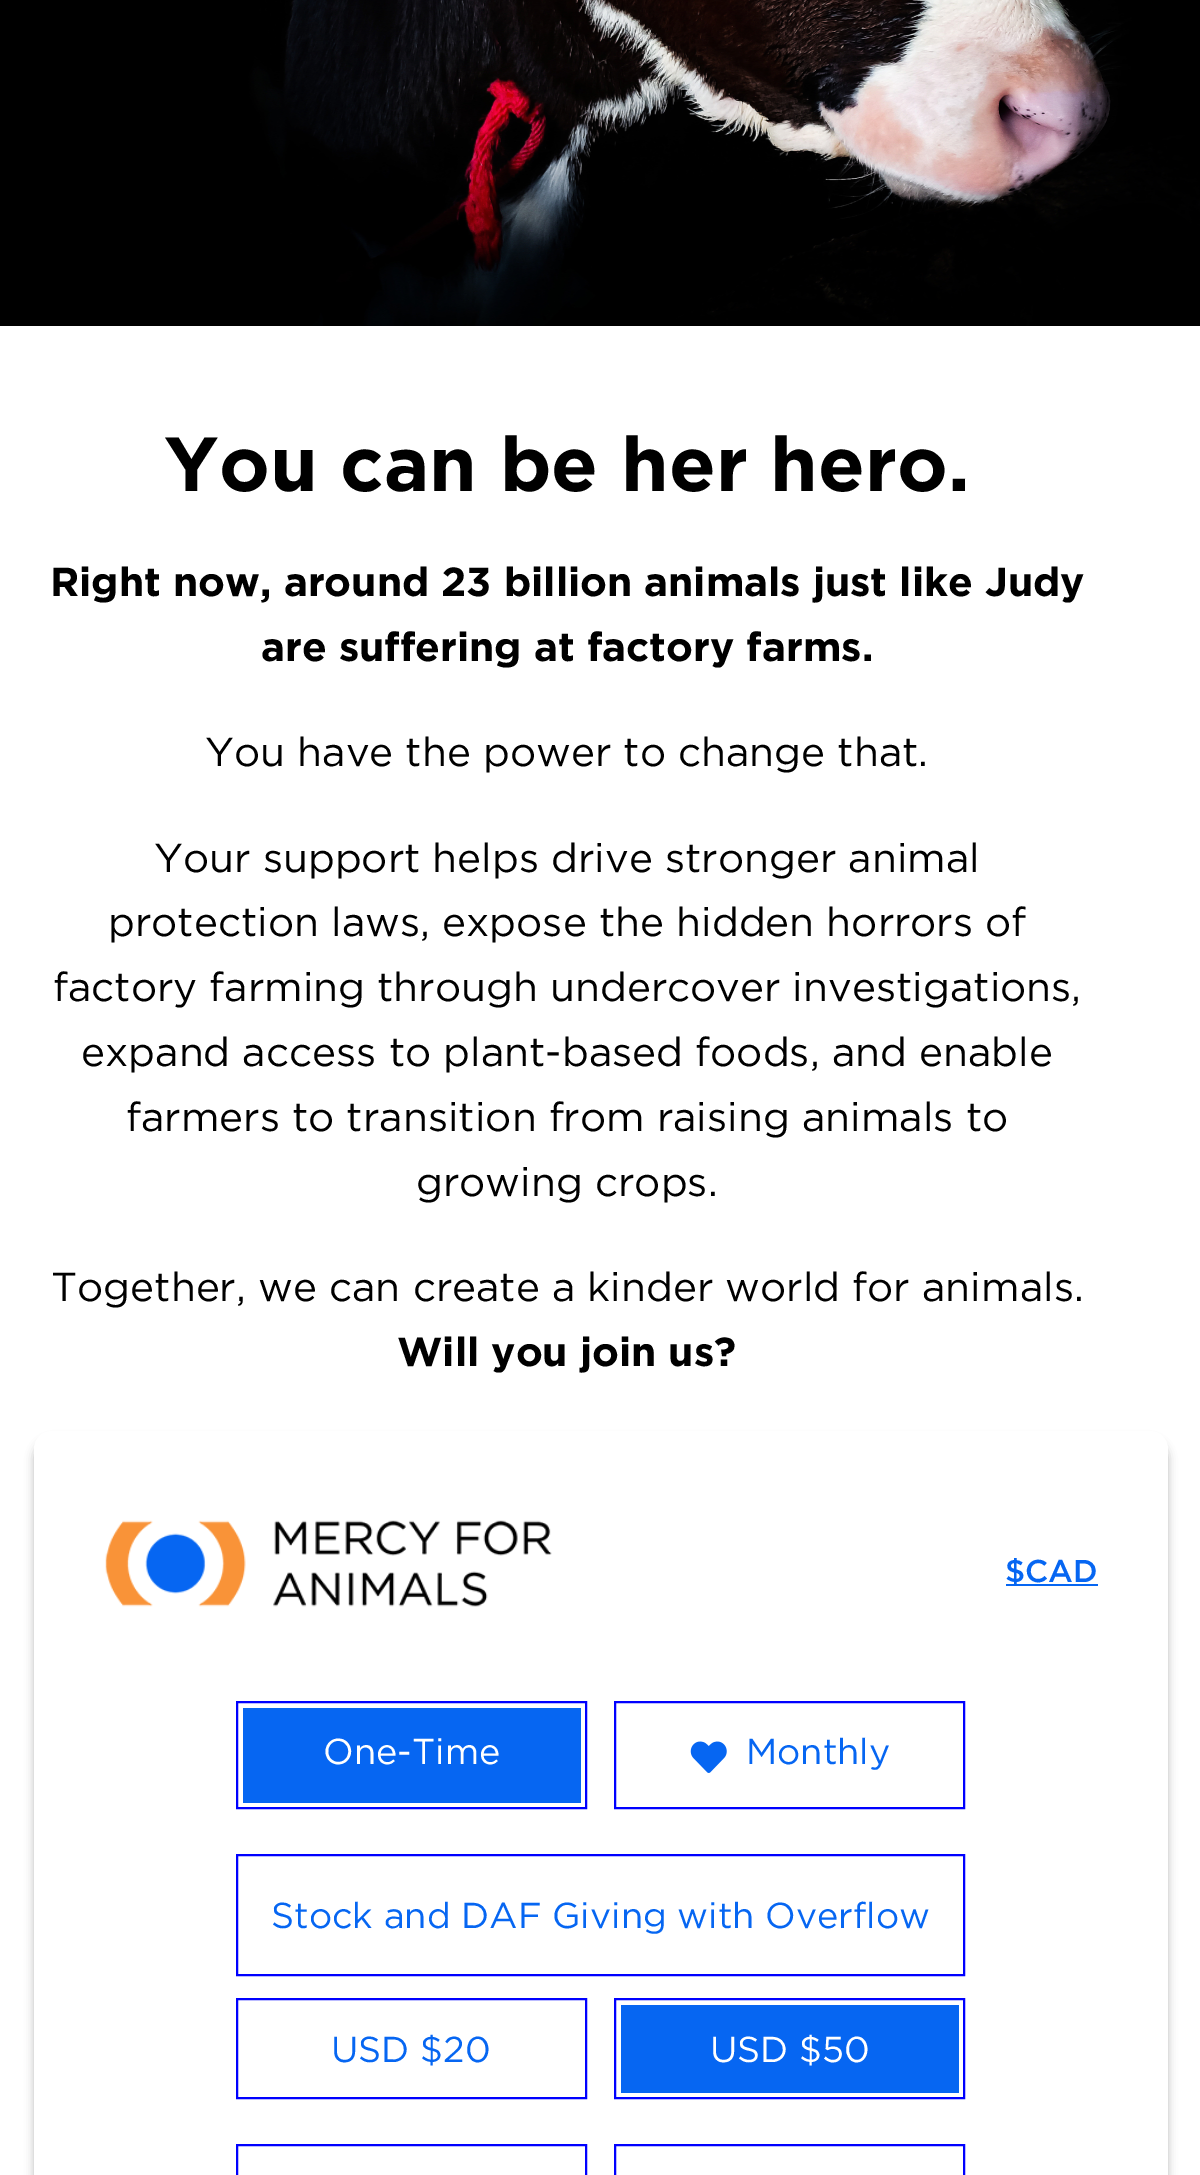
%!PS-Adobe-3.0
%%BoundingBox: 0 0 1200 2175
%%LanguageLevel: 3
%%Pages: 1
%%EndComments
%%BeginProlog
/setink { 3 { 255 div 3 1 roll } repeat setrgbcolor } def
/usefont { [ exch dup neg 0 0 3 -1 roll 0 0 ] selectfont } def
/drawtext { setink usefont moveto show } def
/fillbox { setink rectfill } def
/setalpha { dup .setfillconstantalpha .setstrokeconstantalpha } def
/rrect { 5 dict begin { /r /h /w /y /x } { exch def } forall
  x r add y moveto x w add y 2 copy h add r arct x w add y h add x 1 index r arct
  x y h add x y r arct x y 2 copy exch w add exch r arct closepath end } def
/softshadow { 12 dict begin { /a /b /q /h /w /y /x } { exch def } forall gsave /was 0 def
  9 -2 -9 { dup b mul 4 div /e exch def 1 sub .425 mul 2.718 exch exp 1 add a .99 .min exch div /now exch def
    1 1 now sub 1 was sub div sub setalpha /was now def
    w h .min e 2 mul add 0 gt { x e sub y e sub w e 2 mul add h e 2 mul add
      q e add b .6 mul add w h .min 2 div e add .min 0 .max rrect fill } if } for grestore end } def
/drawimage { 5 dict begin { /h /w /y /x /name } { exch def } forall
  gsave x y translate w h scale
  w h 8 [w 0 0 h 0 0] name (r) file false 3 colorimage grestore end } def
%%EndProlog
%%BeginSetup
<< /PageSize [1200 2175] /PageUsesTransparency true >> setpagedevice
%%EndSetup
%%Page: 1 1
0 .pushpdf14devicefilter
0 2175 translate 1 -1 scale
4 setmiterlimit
0 0 1200 2175 255 255 255 fillbox
(assets/img1.rgb) 0 0 1200 326 drawimage
(You can be her hero.) 164 491 /Gotham-Bold 76.5 0 0 0 drawtext
(Right now, around 23 billion animals just like Judy) 50 596 /Gotham-Bold 40.5 0 0 0 drawtext
(are suffering at factory farms.) 261 661 /Gotham-Bold 40.5 0 0 0 drawtext
(You have the power to change that.) 205 766 /Gotham-Regular 40.5 0 0 0 drawtext
(Your support helps drive stronger animal) 154 872 /Gotham-Regular 40.5 0 0 0 drawtext
(protection laws, expose the hidden horrors of) 108 936 /Gotham-Regular 40.5 0 0 0 drawtext
(factory farming through undercover investigations,) 53 1001 /Gotham-Regular 40.5 0 0 0 drawtext
(expand access to plant-based foods, and enable) 81 1066 /Gotham-Regular 40.5 0 0 0 drawtext
(farmers to transition from raising animals to) 126 1131 /Gotham-Regular 40.5 0 0 0 drawtext
(growing crops.) 416 1196 /Gotham-Regular 40.5 0 0 0 drawtext
(Together, we can create a kinder world for animals.) 51 1301 /Gotham-Regular 40.5 0 0 0 drawtext
(Will you join us?) 397 1366 /Gotham-Bold 40.5 0 0 0 drawtext
34 1440 1134 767 18 4.5 0.25 softshadow
255 255 255 setink
34 1431 1134 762 18 rrect fill
(assets/img2.rgb) 105 1520 447 87 drawimage
1006 1584 92 2 6 102 242 fillbox
($CAD) 1005 1582 /Gotham-Medium 31.5 6 102 242 drawtext
243 1708 338 95 6 102 242 fillbox
0 0 255 setink
2 setlinewidth
237 1702 349 106 rectstroke
(One-Time) 323 1764 /Gotham-Regular 36 255 255 255 drawtext
0 0 255 setink
615 1702 349 106 rectstroke
(assets/img3.rgb) 690 1741 37 32 drawimage
(Monthly) 746 1764 /Gotham-Regular 36 6 102 242 drawtext
0 0 255 setink
237 1855 727 120 rectstroke
(Stock and DAF Giving with Overflow) 271 1928 /Gotham-Regular 36 6 102 242 drawtext
0 0 255 setink
237 1999 349 99 rectstroke
(USD $20) 331 2062 /Gotham-Regular 36 6 102 242 drawtext
621 2005 338 88 6 102 242 fillbox
0 0 255 setink
615 1999 349 99 rectstroke
(USD $50) 710 2062 /Gotham-Regular 36 255 255 255 drawtext
0 0 255 setink
237 2145 349 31 rectstroke
615 2145 349 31 rectstroke
.poppdf14devicefilter showpage
%%EOF
